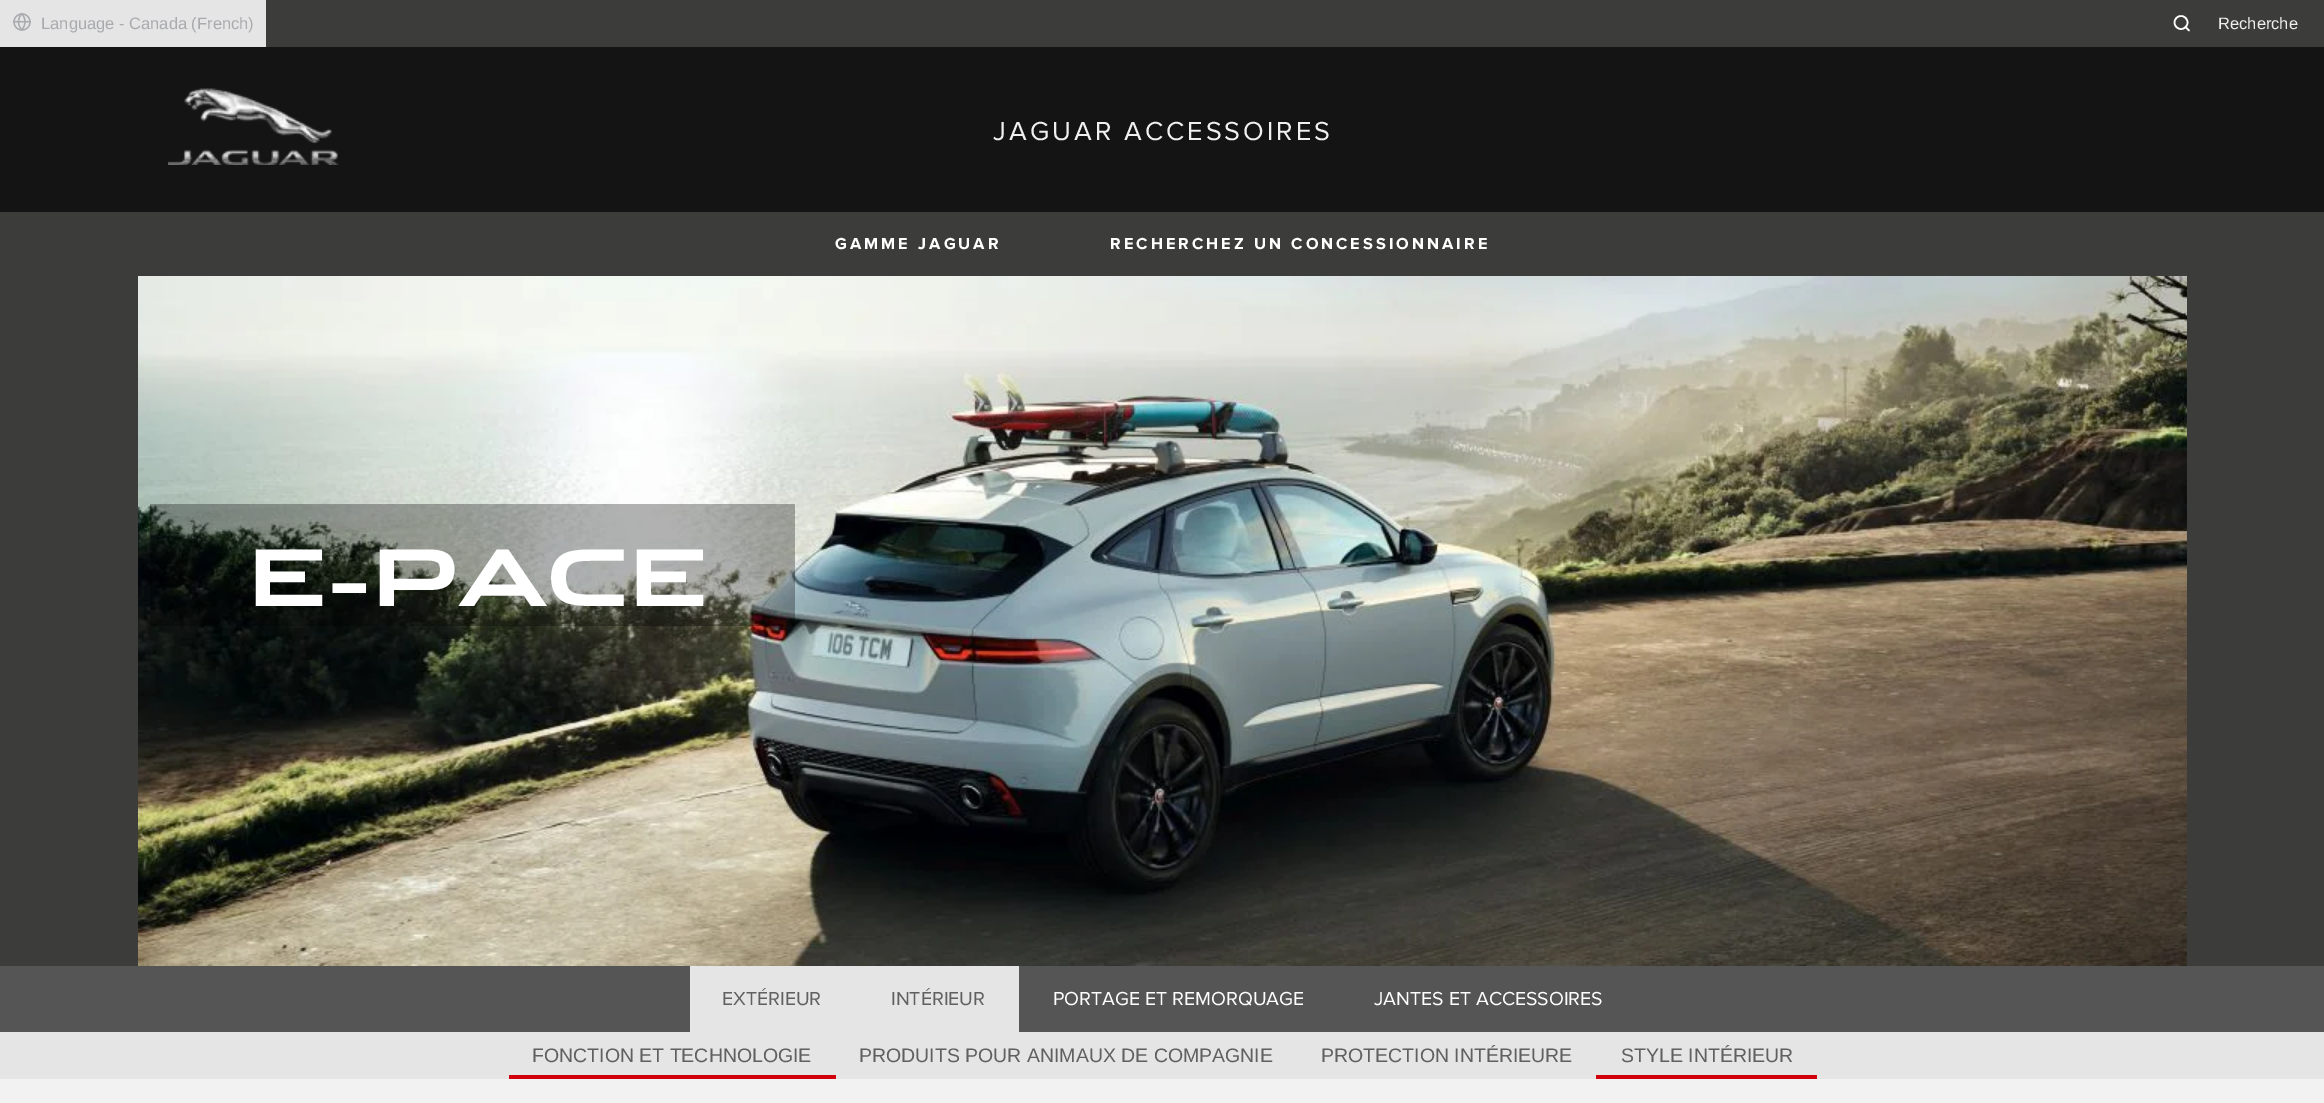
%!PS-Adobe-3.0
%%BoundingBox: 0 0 2324 1103
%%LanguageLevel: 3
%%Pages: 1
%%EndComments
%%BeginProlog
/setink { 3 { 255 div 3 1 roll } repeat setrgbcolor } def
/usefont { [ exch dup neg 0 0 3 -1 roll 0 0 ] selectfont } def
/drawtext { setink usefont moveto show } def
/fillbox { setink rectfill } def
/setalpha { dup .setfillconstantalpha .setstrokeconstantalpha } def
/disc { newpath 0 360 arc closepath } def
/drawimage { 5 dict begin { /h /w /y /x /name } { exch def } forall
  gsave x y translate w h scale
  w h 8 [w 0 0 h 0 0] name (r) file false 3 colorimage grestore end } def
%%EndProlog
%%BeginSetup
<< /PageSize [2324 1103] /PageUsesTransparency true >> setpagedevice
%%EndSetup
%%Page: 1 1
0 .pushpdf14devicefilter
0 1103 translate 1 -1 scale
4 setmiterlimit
0 0 2324 1103 20 20 20 fillbox
266 0 2058 47 60 60 59 fillbox
0 0 266 47 229 229 229 fillbox
(assets/img1.rgb) 12 12 19 19 drawimage
(Language - Canada \(French\)) 41 29 /LiberationSans-Regular 16.5 168 170 174 drawtext
255 255 255 setink
1.6 setlinewidth
2181 22.5 6.5 disc stroke
1 setlinecap
1 setlinejoin
2189 30.5 moveto 2185.5 27 lineto stroke
(Recherche) 2218 29 /LiberationSans-Regular 16.5 240 240 240 drawtext
(assets/img2.rgb) 168 88 171 77 drawimage
/ProximaNova-Regular 27 usefont
993 140 moveto 3 0 (JAGUAR ACCESSOIRES) ashow
0 212 2324 754 60 60 59 fillbox
/ProximaNova-Bold 16.5 usefont
255 255 255 setink
835 249 moveto 3 0 (GAMME JAGUAR) ashow
1110 249 moveto 3 0 (RECHERCHEZ UN CONCESSIONNAIRE) ashow
(assets/img3.rgb) 138 276 2049 690 drawimage
0.3 setalpha
150 504 645 122 0 0 0 fillbox
1 setalpha
(E-PACE) 248 606 /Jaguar-Bold 78 255 255 255 drawtext
0 966 2324 66 85 85 85 fillbox
690 966 329 66 229 229 229 fillbox
(EXTÉRIEUR) 722 1005 /ProximaNova-Regular 19.5 97 95 97 drawtext
(INTÉRIEUR) 891 1005 /ProximaNova-Regular 19.5 97 95 97 drawtext
(PORTAGE ET REMORQUAGE) 1053 1005 /ProximaNova-Regular 19.5 255 255 255 drawtext
(JANTES ET ACCESSOIRES) 1374 1005 /ProximaNova-Regular 19.5 255 255 255 drawtext
0 1032 2324 47 229 229 229 fillbox
gsave 509 1075 moveto 836 1075 lineto 836 1079 lineto 509 1079 lineto closepath clip newpath
<< /ShadingType 2 /ColorSpace /DeviceRGB /Coords [672 1032 672 1079] /Extend [true true] /Function << /FunctionType 3 /Domain [0 1] /Functions [<< /FunctionType 2 /Domain [0 1] /C0 [0.898 0.898 0.898] /C1 [0.898 0.898 0.898] /N 1 >> << /FunctionType 2 /Domain [0 1] /C0 [0.824 0 0.039] /C1 [0.824 0 0.039] /N 1 >>] /Bounds [0.92] /Encode [0 1 0 1] >> >> shfill grestore
(FONCTION ET TECHNOLOGIE) 532 1062 /LiberationSans-Regular 19.5 97 95 97 drawtext
(PRODUITS POUR ANIMAUX DE COMPAGNIE) 859 1062 /LiberationSans-Regular 19.5 97 95 97 drawtext
(PROTECTION INTÉRIEURE) 1321 1062 /LiberationSans-Regular 19.5 97 95 97 drawtext
gsave 1596 1075 moveto 1817 1075 lineto 1817 1079 lineto 1596 1079 lineto closepath clip newpath
<< /ShadingType 2 /ColorSpace /DeviceRGB /Coords [1706 1032 1706 1079] /Extend [true true] /Function << /FunctionType 3 /Domain [0 1] /Functions [<< /FunctionType 2 /Domain [0 1] /C0 [0.898 0.898 0.898] /C1 [0.898 0.898 0.898] /N 1 >> << /FunctionType 2 /Domain [0 1] /C0 [0.824 0 0.039] /C1 [0.824 0 0.039] /N 1 >>] /Bounds [0.92] /Encode [0 1 0 1] >> >> shfill grestore
(STYLE INTÉRIEUR) 1621 1062 /LiberationSans-Regular 19.5 97 95 97 drawtext
0 1079 2324 24 242 242 242 fillbox
.poppdf14devicefilter showpage
%%EOF
